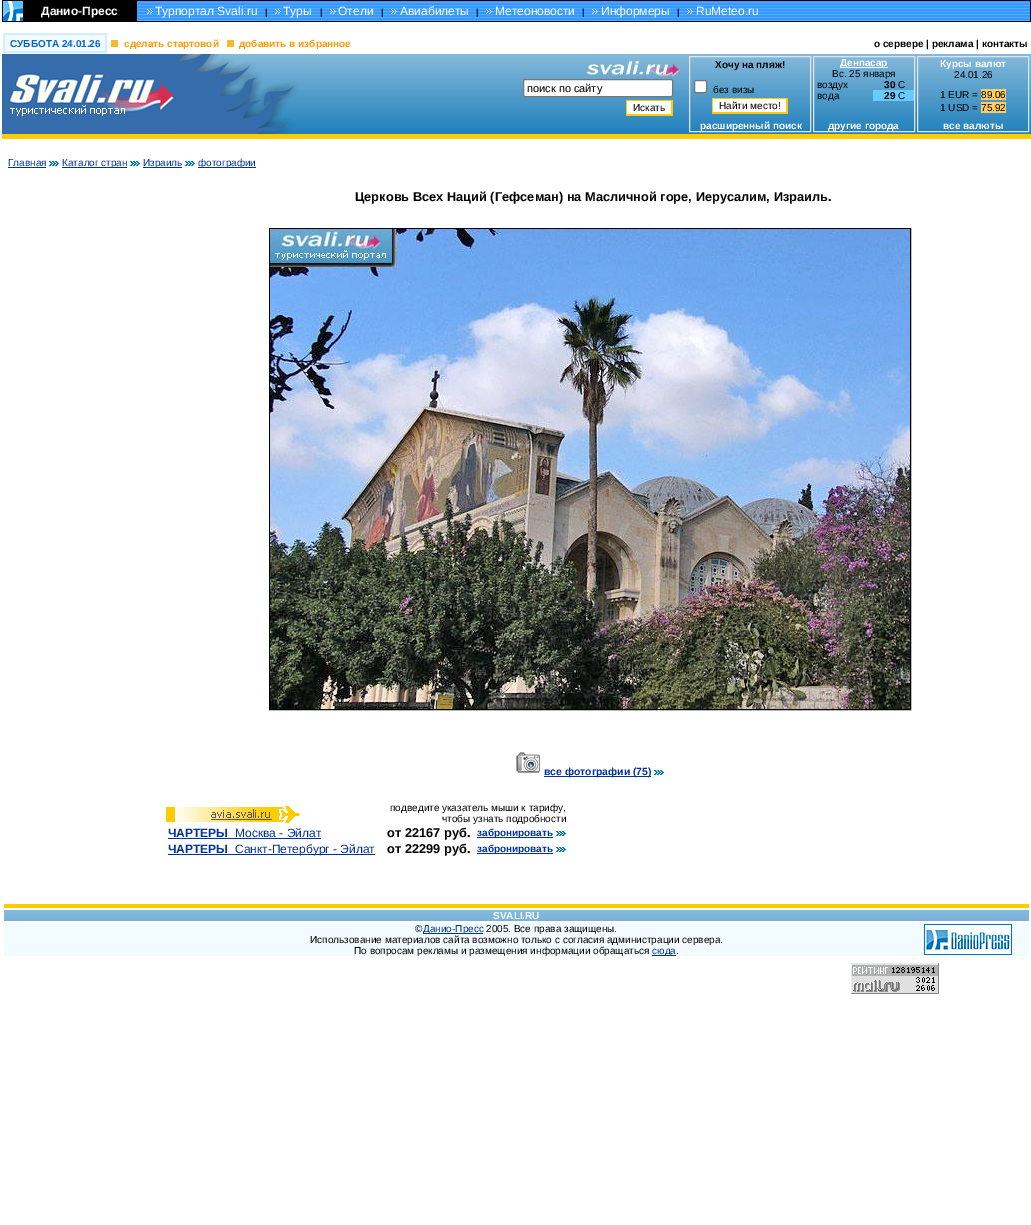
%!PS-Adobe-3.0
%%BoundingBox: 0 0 1031 1225
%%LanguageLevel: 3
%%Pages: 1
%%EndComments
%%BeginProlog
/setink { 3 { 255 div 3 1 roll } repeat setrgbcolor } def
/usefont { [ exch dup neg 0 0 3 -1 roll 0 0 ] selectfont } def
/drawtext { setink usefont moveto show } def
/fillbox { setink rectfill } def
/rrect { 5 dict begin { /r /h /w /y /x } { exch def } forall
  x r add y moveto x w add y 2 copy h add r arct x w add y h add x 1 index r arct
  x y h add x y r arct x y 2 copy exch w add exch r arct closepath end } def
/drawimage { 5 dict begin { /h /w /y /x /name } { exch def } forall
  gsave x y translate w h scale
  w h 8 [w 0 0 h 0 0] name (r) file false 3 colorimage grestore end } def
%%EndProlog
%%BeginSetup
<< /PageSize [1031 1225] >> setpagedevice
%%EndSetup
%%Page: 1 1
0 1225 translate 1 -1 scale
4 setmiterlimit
0 0 1031 1225 255 255 255 fillbox
2 0 1029 22 0 0 0 fillbox
(assets/img1.rgb) 3 1 20 20 drawimage
(Данио-Пресс) 41 15 /LiberationSans-Bold 12 255 255 255 drawtext
137 1 893 1 51 153 255 fillbox
(assets/img2.rgb) 137 2 893 19 drawimage
(assets/img3.rgb) 147 9 6 5 drawimage
(Турпортал Svali.ru) 155 15 /LiberationSans-Regular 12 255 255 255 drawtext
(|) 265 15 /LiberationSans-Bold 9 0 0 0 drawtext
(assets/img3.rgb) 275 9 6 5 drawimage
(Туры) 283 15 /LiberationSans-Regular 12 255 255 255 drawtext
(|) 320 15 /LiberationSans-Bold 9 0 0 0 drawtext
(assets/img3.rgb) 330 9 6 5 drawimage
(Отели) 338 15 /LiberationSans-Regular 12 255 255 255 drawtext
(|) 381 15 /LiberationSans-Bold 9 0 0 0 drawtext
(assets/img3.rgb) 391 9 6 5 drawimage
(Авиабилеты) 400 15 /LiberationSans-Regular 12 255 255 255 drawtext
(|) 476 15 /LiberationSans-Bold 9 0 0 0 drawtext
(assets/img3.rgb) 486 9 6 5 drawimage
(Метеоновости) 495 15 /LiberationSans-Regular 12 255 255 255 drawtext
(|) 582 15 /LiberationSans-Bold 9 0 0 0 drawtext
(assets/img3.rgb) 592 9 6 5 drawimage
(Информеры) 601 15 /LiberationSans-Regular 12 255 255 255 drawtext
(|) 677 15 /LiberationSans-Bold 9 0 0 0 drawtext
(assets/img3.rgb) 687 9 6 5 drawimage
(RuMeteo.ru) 696 15 /LiberationSans-Regular 12 255 255 255 drawtext
242 251 255 setink
4 34 moveto 106 34 lineto 106 52 lineto 4 52 lineto closepath gsave fill grestore
213 237 253 setink
2 setlinewidth
stroke
(СУББОТА 24.01.26) 10 47 /LiberationSans-Bold 10 0 102 204 drawtext
(сделать стартовой) 124 47 /LiberationSans-Bold 10 255 153 0 drawtext
111 40 7 7 246 187 44 fillbox
(добавить в избранное) 239 47 /LiberationSans-Bold 10 255 153 0 drawtext
227 40 7 7 246 187 44 fillbox
(о сервере | реклама | контакты) 874 47 /LiberationSans-Bold 10 0 0 0 drawtext
(assets/img4.rgb) 299 54 732 80 drawimage
(assets/img5.rgb) 2 54 174 80 drawimage
(assets/img6.rgb) 176 54 123 80 drawimage
(assets/img7.rgb) 586 59 94 18 drawimage
255 255 255 setink
523.5 79.5 149 17 1.5 rrect gsave fill grestore
118 118 118 setink
1 setlinewidth
stroke
(поиск по сайту) 527 92 /LiberationSans-Regular 11 0 0 0 drawtext
627 101 44 13 255 255 255 fillbox
626 100 47 1 255 204 0 fillbox
671 100 2 16 255 204 0 fillbox
626 114 47 2 255 204 0 fillbox
626 100 1 16 255 204 0 fillbox
(Искать) 633 111 /LiberationSans-Regular 10 0 0 0 drawtext
228 228 228 setink
689.5 56.5 121 75 rectstroke
(Хочу на пляж!) 715 68 /LiberationSans-Bold 10 0 0 0 drawtext
255 255 255 setink
694.5 80.5 12 12 1.5 rrect gsave fill grestore
118 118 118 setink
stroke
(без визы) 713 93 /LiberationSans-Regular 10 0 0 0 drawtext
713 99 73 13 255 255 255 fillbox
712 98 76 1 255 204 0 fillbox
786 98 2 16 255 204 0 fillbox
712 112 76 2 255 204 0 fillbox
712 98 1 16 255 204 0 fillbox
(Найти место!) 719 109 /LiberationSans-Regular 10 0 0 0 drawtext
(расширенный поиск) 700 129 /LiberationSans-Bold 10 255 255 255 drawtext
228 228 228 setink
813.5 56.5 101 75 rectstroke
840 67 48 1 255 255 255 fillbox
(Денпасар) 840 66 /LiberationSans-Bold 10 255 255 255 drawtext
(Вс. 25 января) 832 77 /LiberationSans-Regular 10 0 0 0 drawtext
(воздух) 817 88 /LiberationSans-Regular 10 0 0 0 drawtext
(30) 884 88 /LiberationSans-Bold 10 0 0 0 drawtext
(C) 898 88 /LiberationSans-Regular 10 0 0 0 drawtext
(вода) 817 99 /LiberationSans-Regular 10 0 0 0 drawtext
873 90 41 11 102 204 255 fillbox
(29) 884 99 /LiberationSans-Bold 10 0 0 0 drawtext
(C) 898 99 /LiberationSans-Regular 10 0 0 0 drawtext
(другие города) 828 129 /LiberationSans-Bold 10 255 255 255 drawtext
228 228 228 setink
917.5 56.5 111 75 rectstroke
(Курсы валют) 940 67 /LiberationSans-Bold 10 255 255 255 drawtext
(24.01.26) 954 78 /LiberationSans-Regular 10 0 0 0 drawtext
(1 EUR =) 940 98 /LiberationSans-Regular 10 0 0 0 drawtext
981 89 25 11 255 204 102 fillbox
(89.06) 981 98 /LiberationSans-Regular 10 0 0 0 drawtext
(1 USD =) 940 111 /LiberationSans-Regular 10 0 0 0 drawtext
981 102 25 11 255 204 102 fillbox
(75.92) 981 111 /LiberationSans-Regular 10 0 0 0 drawtext
(все валюты) 943 129 /LiberationSans-Bold 10 255 255 255 drawtext
2 134 1029 5 255 204 0 fillbox
(Главная) 8 166 /LiberationSans-Regular 10 0 51 153 drawtext
8 167 38 1 0 51 153 fillbox
(assets/img8.rgb) 49 161 10 5 drawimage
62 167 65 1 0 51 153 fillbox
(Каталог стран) 62 166 /LiberationSans-Regular 10 0 51 153 drawtext
(assets/img8.rgb) 130 161 10 5 drawimage
143 167 39 1 0 51 153 fillbox
(Израиль) 143 166 /LiberationSans-Regular 10 0 51 153 drawtext
(assets/img8.rgb) 185 161 10 5 drawimage
198 167 58 1 0 51 153 fillbox
(фотографии) 198 166 /LiberationSans-Regular 10 0 51 153 drawtext
(Церковь Всех Наций \(Гефсеман\) на Масличной горе, Иерусалим, Израиль.) 355 201 /LiberationSans-Bold 12.8 0 0 0 drawtext
269.5 228.5 641 481 rectstroke
(assets/img9.rgb) 270 229 640 480 drawimage
(assets/img10.rgb) 516 752 24 21 drawimage
544 776 107 1 0 51 153 fillbox
(все фотографии \(75\)) 544 775 /LiberationSans-Bold 10.4 0 51 153 drawtext
(assets/img8.rgb) 654 770 10 5 drawimage
(assets/img11.rgb) 166 806 134 17 drawimage
(подведите указатель мыши к тарифу,) 390 811 /LiberationSans-Regular 10 0 0 0 drawtext
(чтобы узнать подробности) 442 822 /LiberationSans-Regular 10 0 0 0 drawtext
(ЧАРТЕРЫ) 168 837 /LiberationSans-Bold 12 0 51 153 drawtext
(Москва - Эйлат) 235 837 /LiberationSans-Regular 12 0 51 153 drawtext
168 838 153 1 0 51 153 fillbox
(от 22167 руб.) 387 837 /LiberationSans-Bold 12.8 0 0 0 drawtext
477 837 76 1 0 51 153 fillbox
(забронировать) 477 836 /LiberationSans-Bold 10 0 51 153 drawtext
(assets/img8.rgb) 556 831 10 5 drawimage
(ЧАРТЕРЫ) 168 853 /LiberationSans-Bold 12 0 51 153 drawtext
168 854 207 1 0 51 153 fillbox
(Санкт-Петербург - Эйлат) 235 853 /LiberationSans-Regular 12 0 51 153 drawtext
(от 22299 руб.) 387 853 /LiberationSans-Bold 12.8 0 0 0 drawtext
477 853 76 1 0 51 153 fillbox
(забронировать) 477 852 /LiberationSans-Bold 10 0 51 153 drawtext
(assets/img8.rgb) 556 847 10 5 drawimage
4 904 1025 4 255 204 0 fillbox
(assets/img12.rgb) 4 910 1025 11 drawimage
(SVALI.RU) 493 919 /LiberationSans-Bold 10 255 255 255 drawtext
4 923 1025 33 242 251 255 fillbox
(©) 415 932 /LiberationSans-Regular 10 0 0 0 drawtext
423 933 60 1 0 51 153 fillbox
(Данио-Пресс) 423 932 /LiberationSans-Regular 10 0 51 153 drawtext
(2005. Все права защищены.) 486 932 /LiberationSans-Regular 10 0 0 0 drawtext
(Использование материалов сайта возможно только с согласия администрации сервера.) 310 943 /LiberationSans-Regular 10 0 0 0 drawtext
(По вопросам рекламы и размещения информации обращаться) 354 954 /LiberationSans-Regular 10 0 0 0 drawtext
652 955 24 1 0 51 153 fillbox
(сюда) 652 954 /LiberationSans-Regular 10 0 51 153 drawtext
(.) 676 954 /LiberationSans-Regular 10 0 0 0 drawtext
(assets/img13.rgb) 924 924 88 31 drawimage
(assets/img14.rgb) 851 963 88 31 drawimage
showpage
%%EOF
